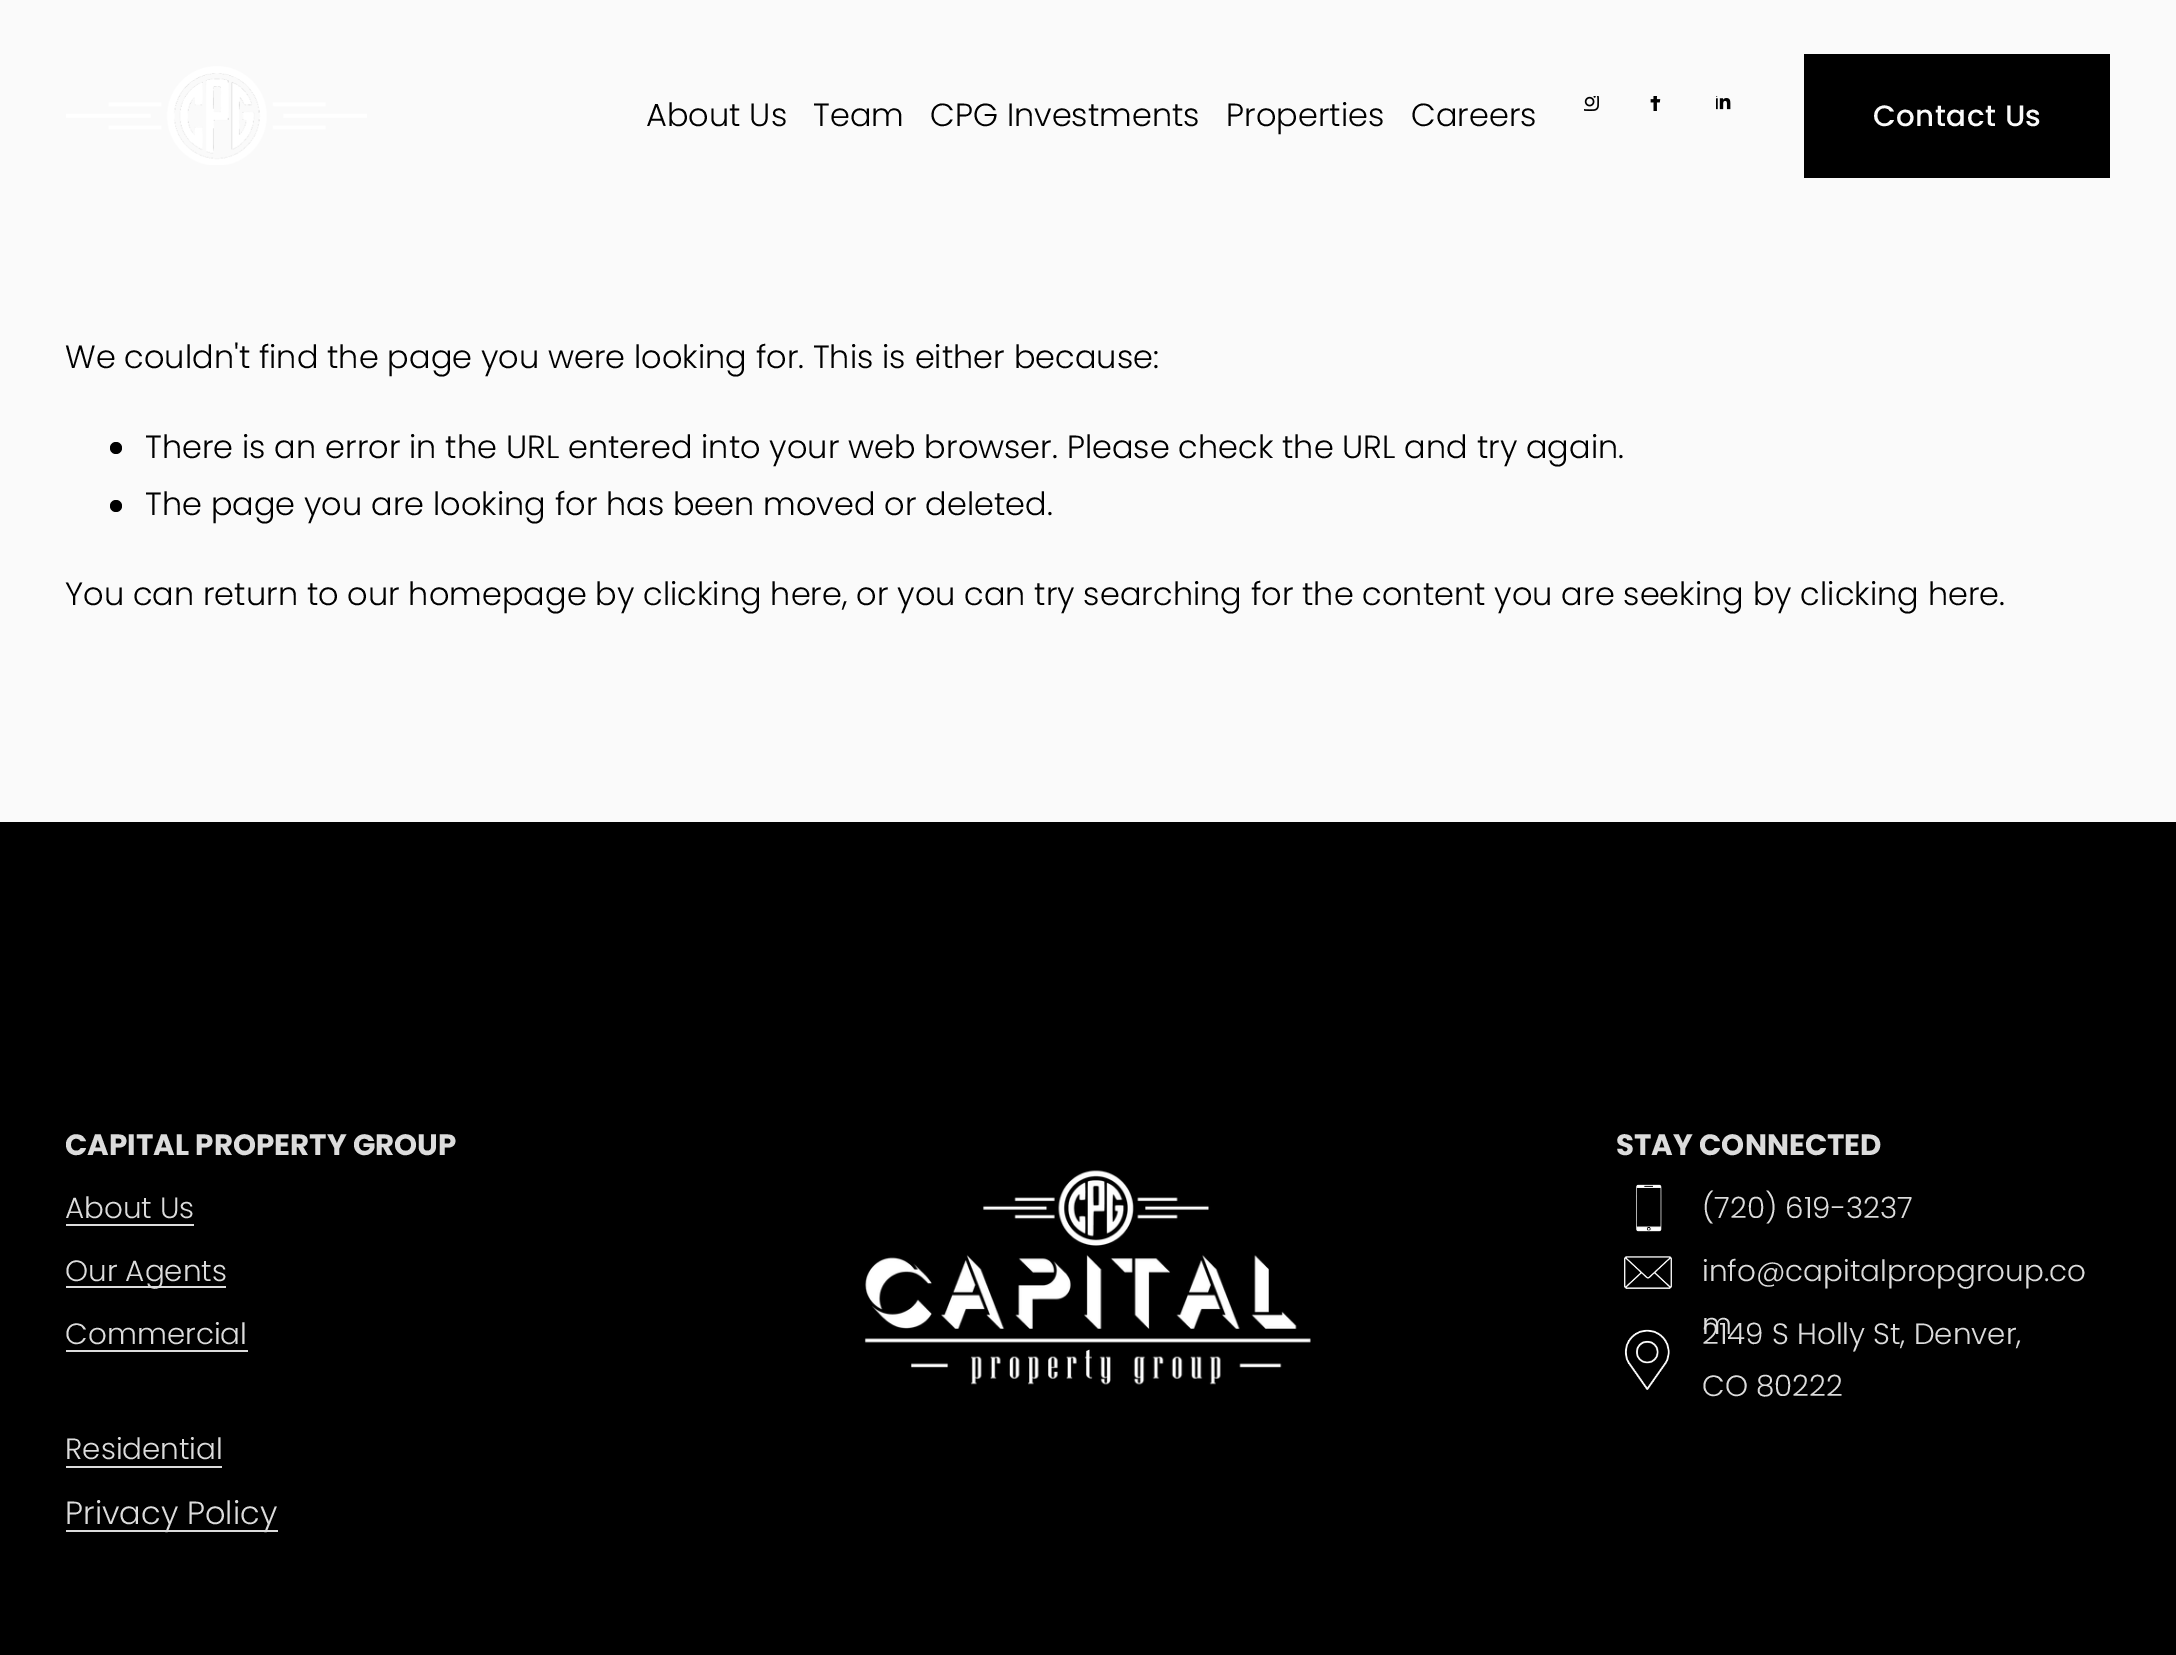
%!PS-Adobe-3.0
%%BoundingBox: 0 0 2176 1655
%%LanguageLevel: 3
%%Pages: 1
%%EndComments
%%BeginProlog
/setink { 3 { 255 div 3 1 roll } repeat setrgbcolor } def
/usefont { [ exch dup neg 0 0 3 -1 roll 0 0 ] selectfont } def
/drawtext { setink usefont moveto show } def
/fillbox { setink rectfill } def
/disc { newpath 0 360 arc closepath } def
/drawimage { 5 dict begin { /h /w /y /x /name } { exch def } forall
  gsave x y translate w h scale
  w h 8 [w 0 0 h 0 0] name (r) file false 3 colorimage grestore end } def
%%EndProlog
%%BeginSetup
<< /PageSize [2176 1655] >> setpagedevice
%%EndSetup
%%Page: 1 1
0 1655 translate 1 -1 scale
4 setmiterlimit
0 0 2176 1655 250 250 250 fillbox
(assets/img1.rgb) 66 66 301 99 drawimage
(About Us) 646 126 /Poppins-Light 32 0 0 0 drawtext
(Team) 813 126 /Poppins-Light 32 0 0 0 drawtext
(CPG Investments) 930 126 /Poppins-Light 32 0 0 0 drawtext
(Properties) 1226 126 /Poppins-Light 32 0 0 0 drawtext
(Careers) 1411 126 /Poppins-Light 32 0 0 0 drawtext
(assets/img2.rgb) 1584 96 15 15 drawimage
(assets/img3.rgb) 1650 96 11 15 drawimage
(assets/img4.rgb) 1716 96 15 14 drawimage
1804 54 306 124 0 0 0 fillbox
/Poppins-Medium 29.4 usefont
250 250 250 setink
1873 126 moveto 0.5 0 (Contact Us) ashow
(We couldn't find the page you were looking for. This is either because:) 65 368 /Poppins-Light 32 0 0 0 drawtext
116 448 6 disc fill
(There is an error in the URL entered into your web browser. Please check the URL and try again.) 145 458 /Poppins-Light 32 0 0 0 drawtext
116 506 6 disc fill
(The page you are looking for has been moved or deleted.) 145 515 /Poppins-Light 32 0 0 0 drawtext
(You can return to our homepage by clicking here, or you can try searching for the content you are seeking by clicking here.) 65 605 /Poppins-Light 32 0 0 0 drawtext
0 822 2176 833 0 0 0 fillbox
(CAPITAL PROPERTY GROUP) 65 1155 /Poppins-Bold 29.4 220 220 220 drawtext
(STAY CONNECTED) 1616 1155 /Poppins-Bold 29.4 220 220 220 drawtext
(About Us) 65 1218 /Poppins-Light 29.4 220 220 220 drawtext
66 1224 128 2 220 220 220 fillbox
(assets/img5.rgb) 864 1170 447 215 drawimage
(assets/img6.rgb) 1636 1184 26 48 drawimage
(\(720\) 619-3237) 1702 1218 /Poppins-Light 29.4 220 220 220 drawtext
66 1286 160 2 220 220 220 fillbox
(Our Agents) 65 1281 /Poppins-Light 29.4 220 220 220 drawtext
(assets/img7.rgb) 1624 1256 48 33 drawimage
(info@capitalpropgroup.co) 1702 1281 /Poppins-Light 29.4 220 220 220 drawtext
(m) 1702 1334 /Poppins-Light 29.4 220 220 220 drawtext
(Commercial) 65 1344 /Poppins-Light 29.4 220 220 220 drawtext
66 1350 182 2 220 220 220 fillbox
(assets/img8.rgb) 1624 1329 46 61 drawimage
(2149 S Holly St, Denver,) 1702 1344 /Poppins-Light 29.4 220 220 220 drawtext
(CO 80222) 1702 1396 /Poppins-Light 29.4 220 220 220 drawtext
(Residential) 65 1459 /Poppins-Light 29.4 220 220 220 drawtext
66 1466 156 2 220 220 220 fillbox
66 1530 212 2 220 220 220 fillbox
(Privacy Policy) 65 1524 /Poppins-Light 32 220 220 220 drawtext
showpage
%%EOF
